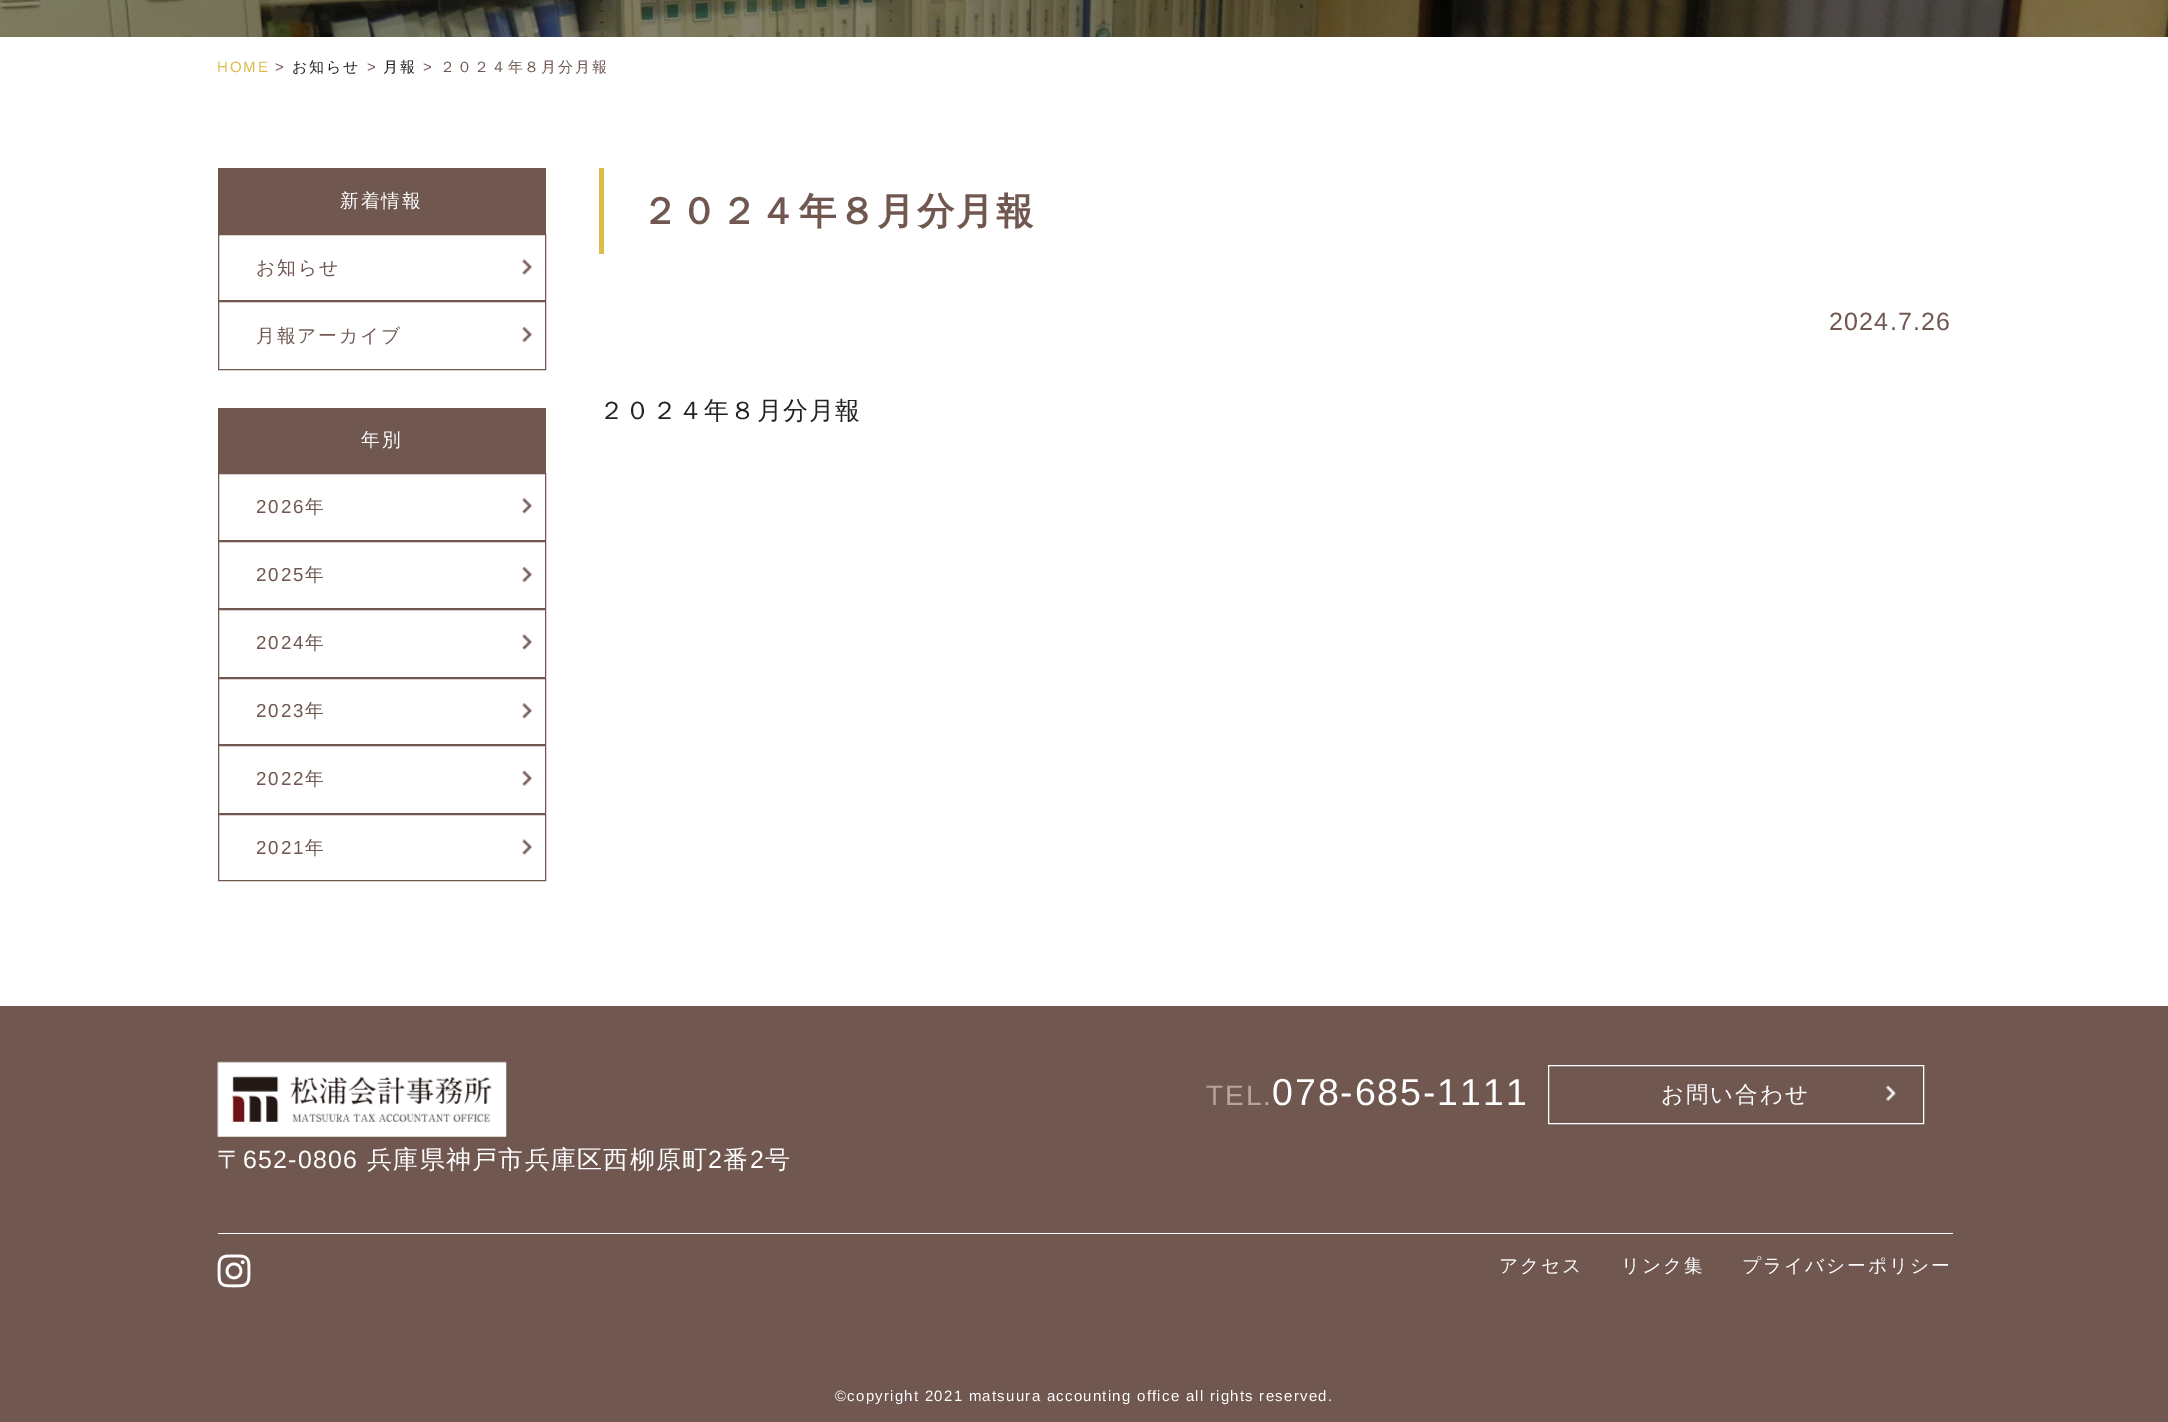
%!PS-Adobe-3.0
%%BoundingBox: 0 0 2168 1422
%%LanguageLevel: 3
%%Pages: 1
%%EndComments
%%BeginProlog
/setink { 3 { 255 div 3 1 roll } repeat setrgbcolor } def
/usefont { [ exch dup neg 0 0 3 -1 roll 0 0 ] selectfont } def
/fillbox { setink rectfill } def
/drawimage { 5 dict begin { /h /w /y /x /name } { exch def } forall
  gsave x y translate w h scale
  w h 8 [w 0 0 h 0 0] name (r) file false 3 colorimage grestore end } def
%%EndProlog
%%BeginSetup
<< /PageSize [2168 1422] >> setpagedevice
%%EndSetup
%%Page: 1 1
0 1422 translate 1 -1 scale
4 setmiterlimit
0 0 2168 1422 255 255 255 fillbox
(assets/img1.rgb) 0 0 2168 37 drawimage
/LiberationSans-Regular 15 usefont
222 187 73 setink
217 72 moveto 1.9 0 (HOME) ashow
112 88 81 setink
275 72 moveto 1.9 0 (>) ashow
/WenQuanYiZenHei-Medium 15 usefont
34 34 34 setink
292 72 moveto 1.9 0 (お知らせ) ashow
/LiberationSans-Regular 15 usefont
112 88 81 setink
367 72 moveto 1.9 0 (>) ashow
/WenQuanYiZenHei-Medium 15 usefont
34 34 34 setink
383 72 moveto 1.9 0 (月報) ashow
/LiberationSans-Regular 15 usefont
112 88 81 setink
423 72 moveto 1.9 0 (>) ashow
/WenQuanYiZenHei-Medium 15 usefont
440 72 moveto 1.9 0 (２０２４年８月分月報) ashow
218 168 328 66 112 88 81 fillbox
/WenQuanYiZenHei-Medium 18.75 usefont
255 255 255 setink
340 207 moveto 1.9 0 (新着情報) ashow
112 88 81 setink
218.5 234.5 327 66 rectstroke
256 274 moveto 1.9 0 (お知らせ) ashow
(assets/img2.rgb) 522 259 11 16 drawimage
218.5 301.5 327 68 rectstroke
256 342 moveto 1.9 0 (月報アーカイブ) ashow
(assets/img3.rgb) 522 327 11 16 drawimage
218 408 328 65 112 88 81 fillbox
255 255 255 setink
361 446 moveto 1.9 0 (年別) ashow
112 88 81 setink
218.5 473.5 327 67 rectstroke
/LiberationSans-Regular 18.75 usefont
256 513 moveto 1.9 0 (2026) ashow
/WenQuanYiZenHei-Medium 18.75 usefont
305 513 moveto 1.9 0 (年) ashow
(assets/img4.rgb) 522 498 11 16 drawimage
218.5 541.5 327 67 rectstroke
/LiberationSans-Regular 18.75 usefont
256 581 moveto 1.9 0 (2025) ashow
/WenQuanYiZenHei-Medium 18.75 usefont
305 581 moveto 1.9 0 (年) ashow
(assets/img3.rgb) 522 567 11 16 drawimage
218.5 609.5 327 68 rectstroke
/LiberationSans-Regular 18.75 usefont
256 649 moveto 1.9 0 (2024) ashow
/WenQuanYiZenHei-Medium 18.75 usefont
305 649 moveto 1.9 0 (年) ashow
(assets/img2.rgb) 522 634 11 16 drawimage
218.5 678.5 327 66 rectstroke
/LiberationSans-Regular 18.75 usefont
256 717 moveto 1.9 0 (2023) ashow
/WenQuanYiZenHei-Medium 18.75 usefont
305 717 moveto 1.9 0 (年) ashow
(assets/img4.rgb) 522 703 11 16 drawimage
218.5 745.5 327 68 rectstroke
/LiberationSans-Regular 18.75 usefont
256 785 moveto 1.9 0 (2022) ashow
/WenQuanYiZenHei-Medium 18.75 usefont
305 785 moveto 1.9 0 (年) ashow
(assets/img5.rgb) 522 770 11 16 drawimage
218.5 814.5 327 66 rectstroke
/LiberationSans-Regular 18.75 usefont
256 854 moveto 1.9 0 (2021) ashow
/WenQuanYiZenHei-Medium 18.75 usefont
305 854 moveto 1.9 0 (年) ashow
(assets/img2.rgb) 522 839 11 16 drawimage
599 168 5 86 222 187 73 fillbox
/WenQuanYiZenHei-Bold 37.5 usefont
112 88 81 setink
641 224 moveto 1.9 0 (２０２４年８月分月報) ashow
/LiberationSans-Regular 25 usefont
1829 330 moveto 1.25 0 (2024.7.26) ashow
/WenQuanYiZenHei-Medium 25 usefont
34 34 34 setink
599 419 moveto 1.25 0 (２０２４年８月分月報) ashow
0 1006 2168 416 112 88 81 fillbox
218 1233 1735 1 255 255 255 fillbox
/LiberationSans-Regular 28 usefont
185 163 156 setink
1206 1105 moveto 1.9 0 (TEL.) ashow
/LiberationSans-Regular 37.5 usefont
255 255 255 setink
1272 1105 moveto 1.9 0 (078-685-1111) ashow
1548.5 1065.5 375 58 rectstroke
/WenQuanYiZenHei-Medium 22.5 usefont
1661 1102 moveto 1.9 0 (お問い合わせ) ashow
(assets/img6.rgb) 1886 1085 10 16 drawimage
(assets/img7.rgb) 217 1061 290 76 drawimage
/WenQuanYiZenHei-Medium 25 usefont
217 1168 moveto 1.25 0 (〒) ashow
/LiberationSans-Regular 25 usefont
243 1168 moveto 1.25 0 (652-0806) ashow
/WenQuanYiZenHei-Medium 25 usefont
367 1168 moveto 1.25 0 (兵庫県神戸市兵庫区西柳原町) ashow
/LiberationSans-Regular 25 usefont
708 1168 moveto 1.25 0 (2) ashow
/WenQuanYiZenHei-Medium 25 usefont
723 1168 moveto 1.25 0 (番) ashow
/LiberationSans-Regular 25 usefont
750 1168 moveto 1.25 0 (2) ashow
/WenQuanYiZenHei-Medium 25 usefont
765 1168 moveto 1.25 0 (号) ashow
(assets/img8.rgb) 217 1254 34 34 drawimage
/WenQuanYiZenHei-Medium 18.75 usefont
1499 1272 moveto 1.9 0 (アクセス) ashow
1621 1272 moveto 1.9 0 (リンク集) ashow
1742 1272 moveto 1.9 0 (プライバシーポリシー) ashow
/LiberationSans-Regular 15 usefont
835 1401 moveto 1.25 0 (©copyright 2021 matsuura accounting office all rights reserved.) ashow
showpage
%%EOF
